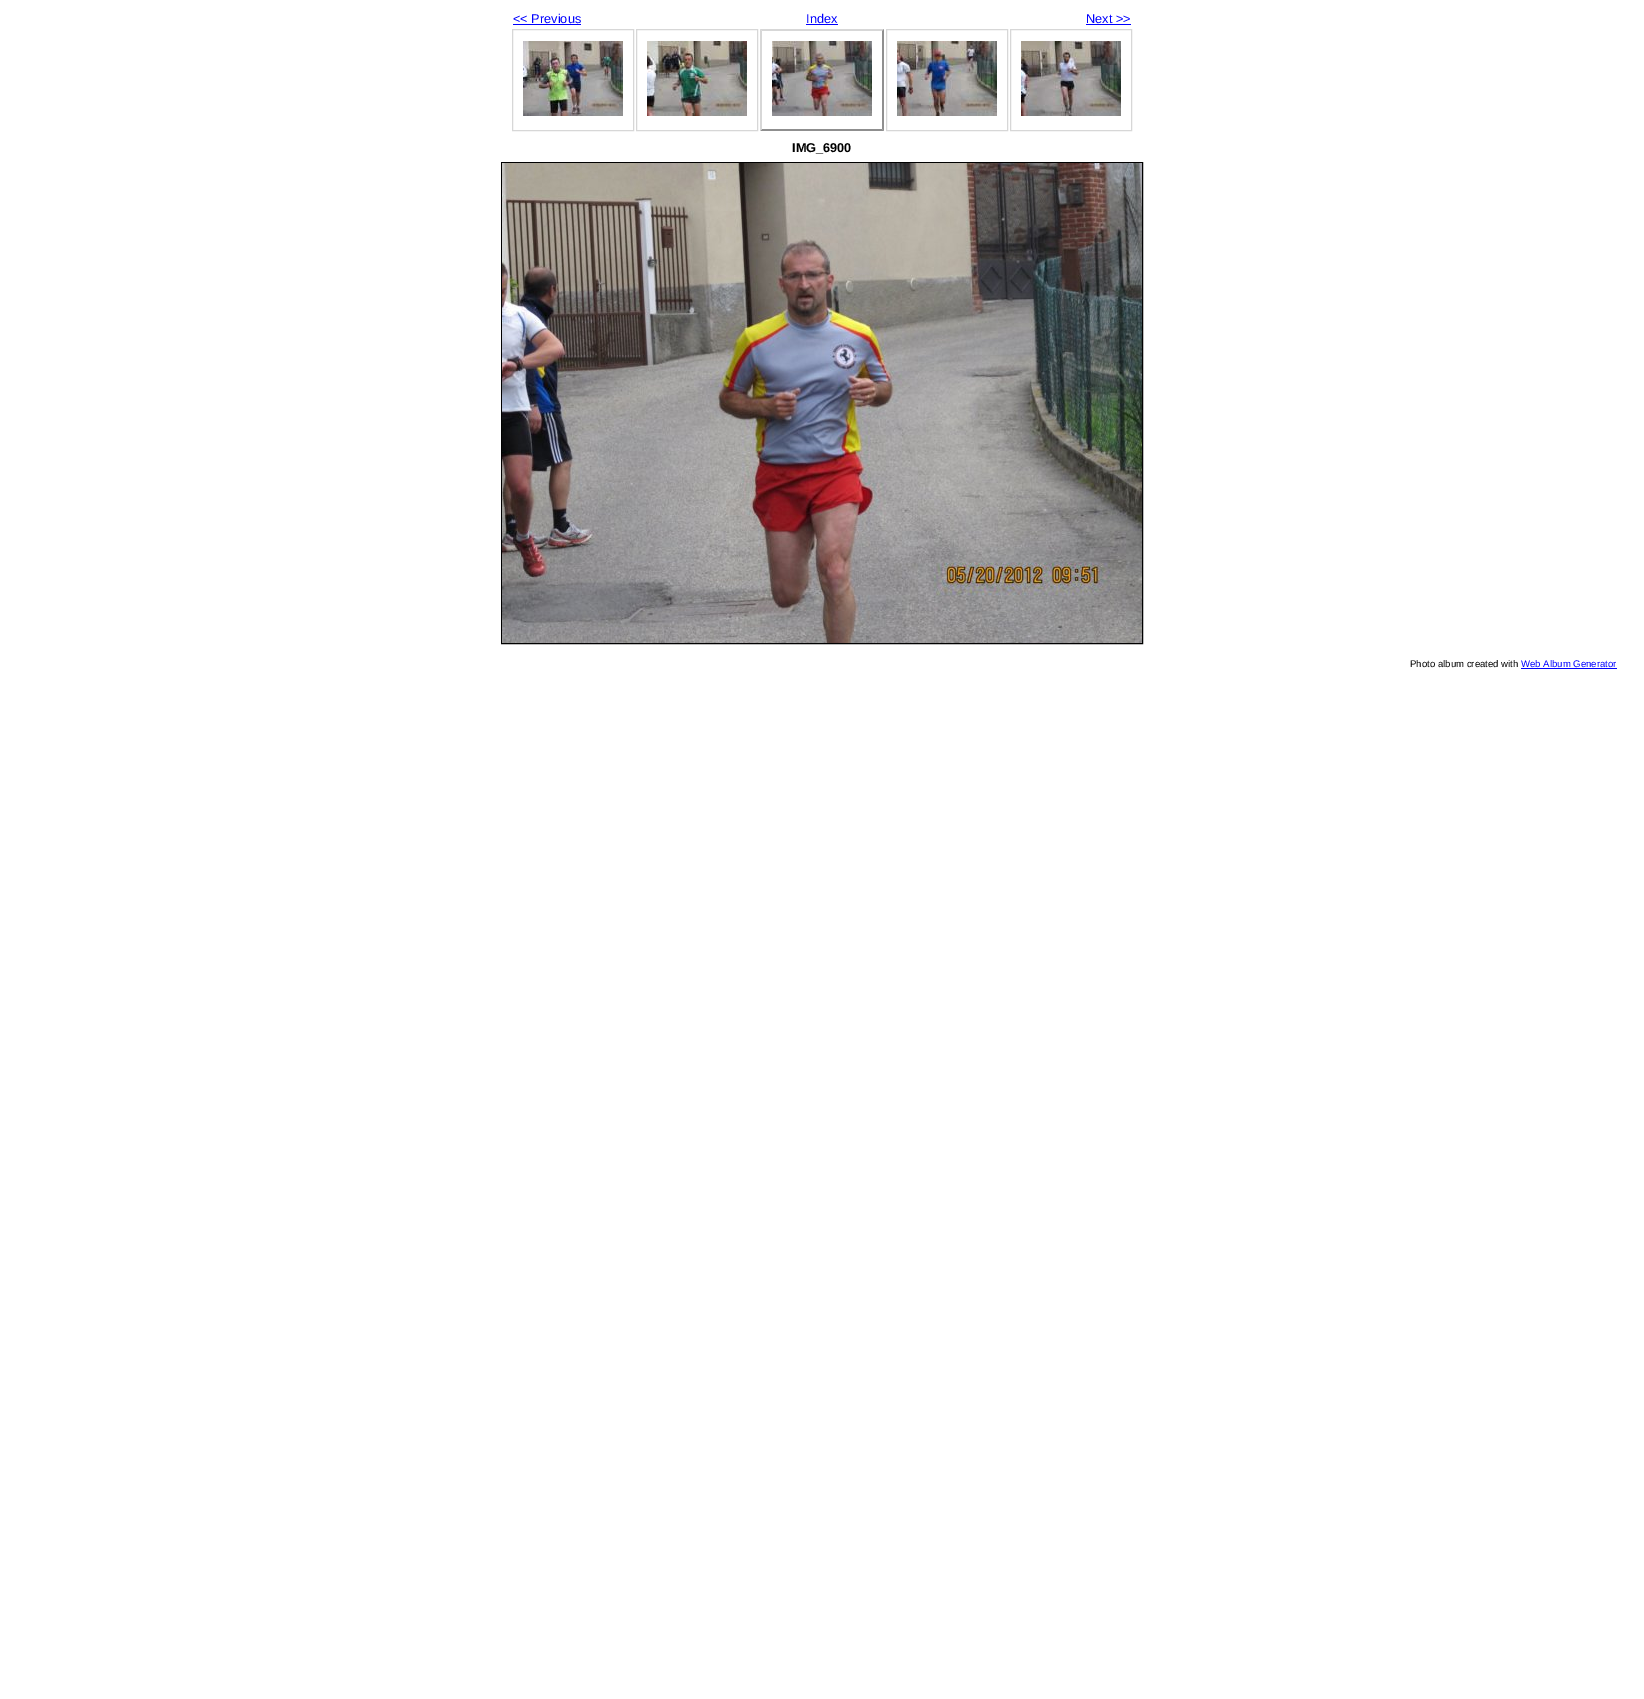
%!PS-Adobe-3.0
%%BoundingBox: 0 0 1644 1699
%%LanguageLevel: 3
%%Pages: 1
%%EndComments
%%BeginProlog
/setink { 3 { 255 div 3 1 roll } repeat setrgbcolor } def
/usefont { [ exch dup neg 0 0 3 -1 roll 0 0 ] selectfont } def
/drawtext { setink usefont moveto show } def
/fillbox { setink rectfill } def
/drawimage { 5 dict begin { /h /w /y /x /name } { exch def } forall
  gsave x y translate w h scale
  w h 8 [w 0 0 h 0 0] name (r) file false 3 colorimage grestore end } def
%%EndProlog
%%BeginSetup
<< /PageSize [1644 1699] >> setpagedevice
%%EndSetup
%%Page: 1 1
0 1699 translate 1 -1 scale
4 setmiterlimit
0 0 1644 1699 255 255 255 fillbox
(<< Previous) 513 23 /LiberationSans-Regular 12.75 0 0 255 drawtext
513 24 68 1 0 0 255 fillbox
(Index) 806 23 /LiberationSans-Regular 12.75 0 0 255 drawtext
806 24 32 1 0 0 255 fillbox
(Next >>) 1086 23 /LiberationSans-Regular 12.75 0 0 255 drawtext
1086 24 45 1 0 0 255 fillbox
215 215 215 setink
512.5 29.5 121 101 rectstroke
(assets/img1.rgb) 523 41 100 75 drawimage
636.5 29.5 121 101 rectstroke
(assets/img2.rgb) 647 41 100 75 drawimage
760 29 moveto 884 29 lineto 882 31 lineto 762 31 lineto closepath fill
143 143 143 setink
884 29 moveto 884 131 lineto 882 129 lineto 882 31 lineto closepath fill
884 131 moveto 760 131 lineto 762 129 lineto 882 129 lineto closepath fill
215 215 215 setink
760 131 moveto 760 29 lineto 762 31 lineto 762 129 lineto closepath fill
(assets/img3.rgb) 772 41 100 75 drawimage
886.5 29.5 121 101 rectstroke
(assets/img4.rgb) 897 41 100 75 drawimage
1010.5 29.5 121 101 rectstroke
(assets/img5.rgb) 1021 41 100 75 drawimage
(IMG_6900) 792 152 /LiberationSans-Bold 12.75 0 0 0 drawtext
501.5 162.5 641 481 rectstroke
(assets/img6.rgb) 502 163 640 480 drawimage
(Photo album created with) 1410 667 /LiberationSans-Regular 9.6 0 0 0 drawtext
(Web Album Generator) 1521 667 /LiberationSans-Regular 9.6 0 0 255 drawtext
1521 668 96 1 0 0 255 fillbox
showpage
%%EOF
